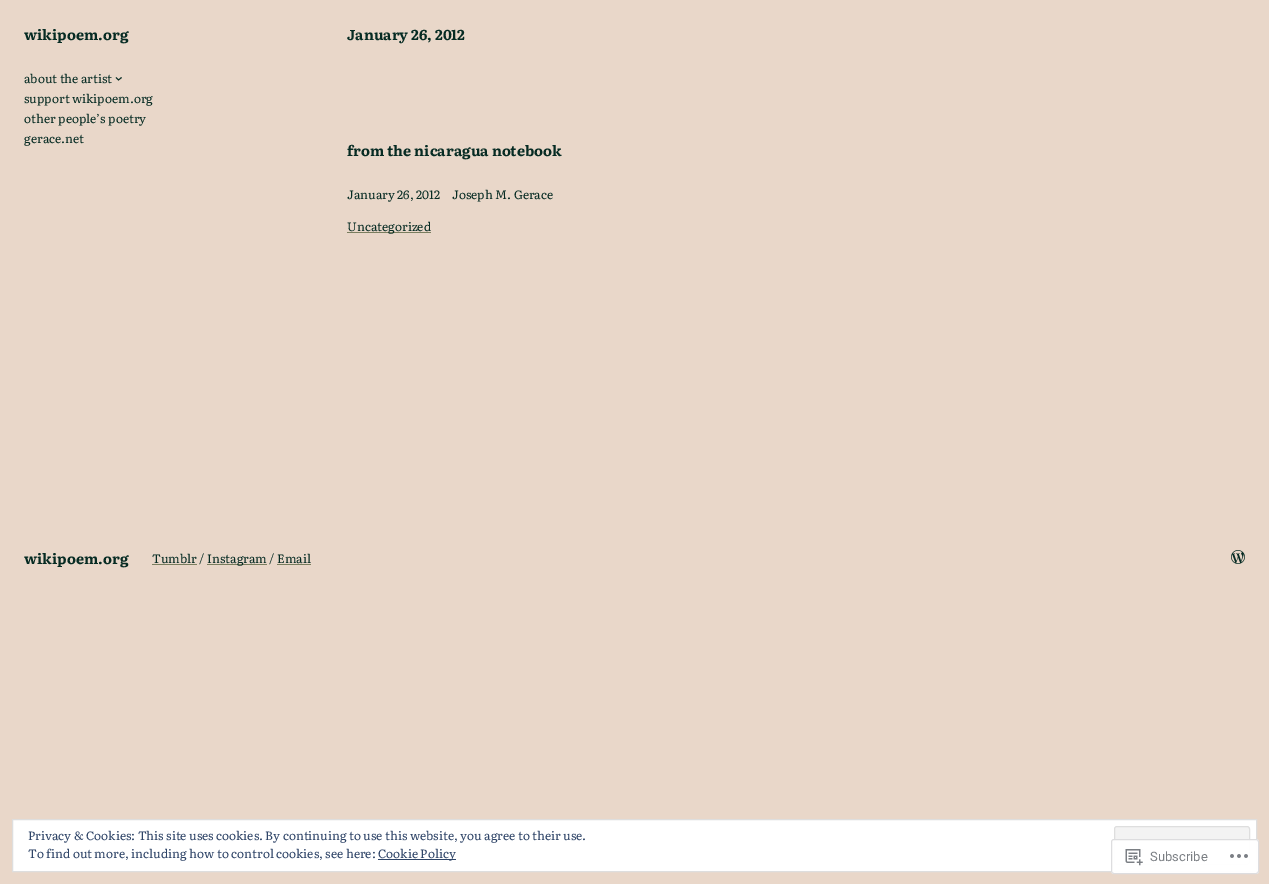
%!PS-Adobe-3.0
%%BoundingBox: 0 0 1269 884
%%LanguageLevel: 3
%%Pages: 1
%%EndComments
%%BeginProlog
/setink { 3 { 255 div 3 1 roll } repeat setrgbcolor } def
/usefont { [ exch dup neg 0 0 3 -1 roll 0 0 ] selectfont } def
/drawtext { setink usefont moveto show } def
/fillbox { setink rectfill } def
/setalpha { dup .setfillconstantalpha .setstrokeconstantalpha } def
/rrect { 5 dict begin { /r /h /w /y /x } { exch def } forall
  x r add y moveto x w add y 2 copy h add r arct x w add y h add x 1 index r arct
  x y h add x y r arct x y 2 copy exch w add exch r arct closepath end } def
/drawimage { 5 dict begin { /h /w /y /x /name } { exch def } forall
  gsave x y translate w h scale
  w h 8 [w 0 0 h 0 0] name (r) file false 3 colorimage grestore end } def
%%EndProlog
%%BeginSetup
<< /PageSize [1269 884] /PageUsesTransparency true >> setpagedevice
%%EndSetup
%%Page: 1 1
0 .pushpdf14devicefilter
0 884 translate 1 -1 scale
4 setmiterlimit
0 0 1269 884 233 215 201 fillbox
(wikipoem.org) 24 40 /Literata-Bold 14.4 6 43 35 drawtext
(about the artist) 24 83 /Literata-Regular 12 6 43 35 drawtext
0.9 setlinewidth
116 77.5 moveto 118.5 80 lineto 121.5 77.5 lineto stroke
(support wikipoem.org) 24 103 /Literata-Regular 12 6 43 35 drawtext
(other people’s poetry) 24 123 /Literata-Regular 12 6 43 35 drawtext
(gerace.net) 24 143 /Literata-Regular 12 6 43 35 drawtext
(January 26, 2012) 347 40 /Literata-Bold 14.4 6 43 35 drawtext
(from the nicaragua notebook) 347 156 /Literata-Bold 14.4 6 43 35 drawtext
(January 26, 2012) 347 199 /Literata-Regular 12 6 43 35 drawtext
(Joseph M. Gerace) 452 199 /Literata-Regular 12 6 43 35 drawtext
347 232 84 1 122 126 95 fillbox
(Uncategorized) 347 231 /Literata-Regular 12 6 43 35 drawtext
(wikipoem.org) 24 564 /Literata-Bold 14.4 6 43 35 drawtext
152 564 45 1 122 126 95 fillbox
(Tumblr /) 152 563 /Literata-Regular 12 6 43 35 drawtext
207 564 60 1 122 126 95 fillbox
(Instagram / Email) 207 563 /Literata-Regular 12 6 43 35 drawtext
277 564 34 1 122 126 95 fillbox
(assets/img1.rgb) 1231 550 14 14 drawimage
255 255 255 setink
12.5 819.5 moveto 1256.5 819.5 lineto 1256.5 871.5 lineto 12.5 871.5 lineto closepath gsave fill grestore
222 222 222 setink
1 setlinewidth
stroke
(Privacy & Cookies: This site uses cookies. By continuing to use this website, you agree to their use.) 28 840 /Literata-Regular 12 46 68 103 drawtext
243 243 243 setink
1114.5 826.5 135 38 2.5 rrect gsave fill grestore
222 222 222 setink
stroke
(To find out more, including how to control cookies, see here:) 28 858 /Literata-Regular 12 46 68 103 drawtext
378 859 78 1 46 68 103 fillbox
(Cookie Policy) 378 858 /Literata-Regular 12 46 68 103 drawtext
0.98 setalpha
255 255 255 setink
1111 839 148 35 3 rrect fill
220 220 222 setink
1111.5 839.5 147 34 2.5 rrect stroke
1 setalpha
(assets/img2.rgb) 1125 849 18 17 drawimage
(Subscribe) 1150 861 /Roboto-Regular 13 123 127 132 drawtext
(assets/img3.rgb) 1230 854 18 4 drawimage
.poppdf14devicefilter showpage
%%EOF
